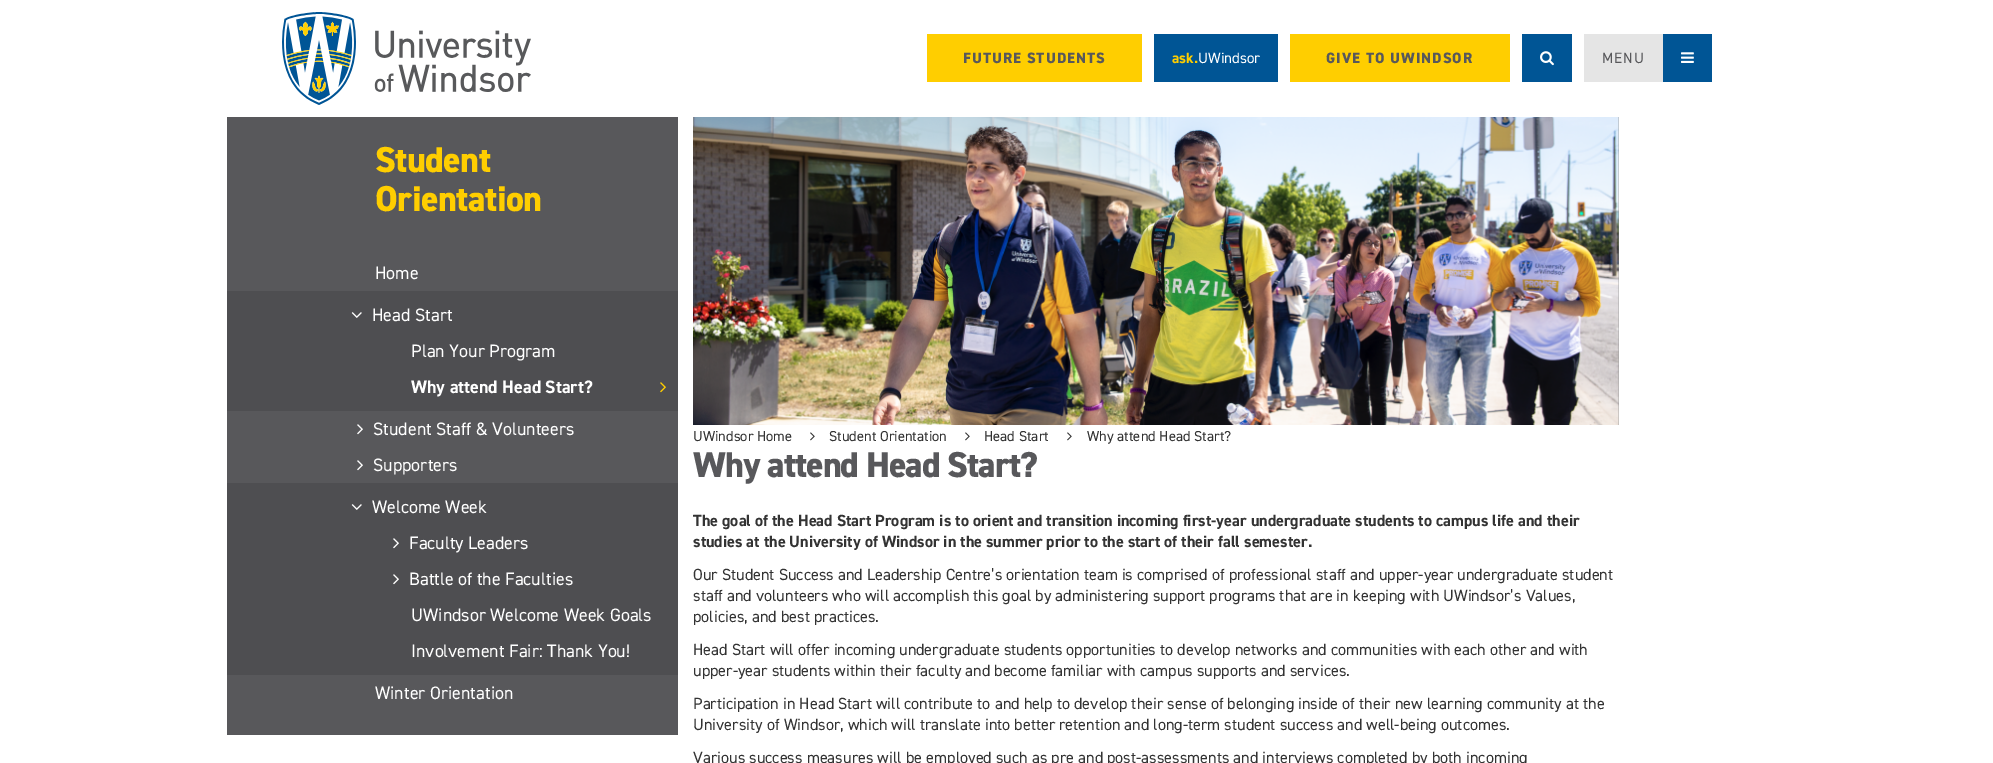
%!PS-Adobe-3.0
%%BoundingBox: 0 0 1993 763
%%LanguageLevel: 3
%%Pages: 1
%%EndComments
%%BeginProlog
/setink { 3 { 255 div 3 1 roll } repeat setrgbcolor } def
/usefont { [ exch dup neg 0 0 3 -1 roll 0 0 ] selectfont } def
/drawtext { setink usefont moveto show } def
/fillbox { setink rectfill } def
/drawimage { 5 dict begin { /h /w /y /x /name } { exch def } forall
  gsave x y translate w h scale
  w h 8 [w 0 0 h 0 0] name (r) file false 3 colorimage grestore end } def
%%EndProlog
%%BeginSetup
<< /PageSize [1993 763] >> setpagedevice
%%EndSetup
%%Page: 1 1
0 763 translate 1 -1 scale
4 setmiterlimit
0 0 1993 763 255 255 255 fillbox
(assets/img1.rgb) 282 12 249 93 drawimage
927 34 215 48 255 206 0 fillbox
/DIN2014-ExtraBold 15 usefont
88 88 91 setink
963 63 moveto 1 0 (FUTURE STUDENTS) ashow
1154 34 124 48 0 85 149 fillbox
(ask.) 1172 63 /DIN2014-Bold 15 255 206 0 drawtext
(UWindsor) 1198 63 /DIN2014-Regular 15 255 255 255 drawtext
1290 34 220 48 255 206 0 fillbox
/DIN2014-ExtraBold 15 usefont
88 88 91 setink
1326 63 moveto 1 0 (GIVE TO UWINDSOR) ashow
1522 34 50 48 0 85 149 fillbox
(assets/img2.rgb) 1540 51 14 15 drawimage
1584 34 79 48 229 229 229 fillbox
/DIN2014-Regular 15 usefont
88 88 91 setink
1602 63 moveto 1 0 (MENU) ashow
1663 34 49 48 0 85 149 fillbox
(assets/img3.rgb) 1681 52 13 11 drawimage
227 117 451 618 88 88 91 fillbox
/DIN2014-ExtraBold 36 usefont
255 206 0 setink
375 172 moveto -0.5 0 (Student) ashow
375 211 moveto -0.5 0 (Orientation) ashow
(Home) 375 279 /DIN2014-Regular 18 255 255 255 drawtext
227 291 451 120 78 78 81 fillbox
(assets/img4.rgb) 351 312 11 6 drawimage
(Head Start) 372 321 /DIN2014-Regular 18 255 255 255 drawtext
(Plan Your Program) 411 357 /DIN2014-Regular 18 255 255 255 drawtext
(Why attend Head Start?) 411 393 /DIN2014-Bold 18 255 255 255 drawtext
(assets/img5.rgb) 660 382 6 11 drawimage
(assets/img6.rgb) 357 424 6 11 drawimage
(Student Staff & Volunteers) 373 435 /DIN2014-Regular 18 255 255 255 drawtext
(assets/img6.rgb) 357 460 6 11 drawimage
(Supporters) 373 471 /DIN2014-Regular 18 255 255 255 drawtext
227 483 451 192 78 78 81 fillbox
(assets/img4.rgb) 351 504 11 6 drawimage
(Welcome Week) 372 513 /DIN2014-Regular 18 255 255 255 drawtext
(assets/img7.rgb) 393 538 6 11 drawimage
(Faculty Leaders) 409 549 /DIN2014-Regular 18 255 255 255 drawtext
(assets/img7.rgb) 393 574 6 11 drawimage
(Battle of the Faculties) 409 585 /DIN2014-Regular 18 255 255 255 drawtext
(UWindsor Welcome Week Goals) 411 621 /DIN2014-Regular 18 255 255 255 drawtext
(Involvement Fair: Thank You!) 411 657 /DIN2014-Regular 18 255 255 255 drawtext
(Winter Orientation) 375 699 /DIN2014-Regular 18 255 255 255 drawtext
(assets/img8.rgb) 693 117 926 308 drawimage
(UWindsor Home) 693 441 /DIN2014-Regular 14.5 51 51 51 drawtext
(assets/img9.rgb) 810 432 5 9 drawimage
(Student Orientation) 829 441 /DIN2014-Regular 14.5 51 51 51 drawtext
(assets/img9.rgb) 965 432 5 9 drawimage
(Head Start) 984 441 /DIN2014-Regular 14.5 51 51 51 drawtext
(assets/img9.rgb) 1067 432 5 9 drawimage
(Why attend Head Start?) 1087 441 /DIN2014-Regular 14.5 51 51 51 drawtext
/DIN2014-ExtraBold 36 usefont
88 88 91 setink
693 477 moveto -1 0 (Why attend Head Start?) ashow
(The goal of the Head Start Program is to orient and transition incoming first-year undergraduate students to campus life and their) 693 526 /DIN2014-Bold 16.2 51 51 51 drawtext
(studies at the University of Windsor in the summer prior to the start of their fall semester.) 693 547 /DIN2014-Bold 16.2 51 51 51 drawtext
(Our Student Success and Leadership Centre’s orientation team is comprised of professional staff and upper-year undergraduate student) 693 580 /DIN2014-Regular 16.2 51 51 51 drawtext
(staff and volunteers who will accomplish this goal by administering support programs that are in keeping with UWindsor’s Values,) 693 601 /DIN2014-Regular 16.2 51 51 51 drawtext
(policies, and best practices.) 693 622 /DIN2014-Regular 16.2 51 51 51 drawtext
(Head Start will offer incoming undergraduate students opportunities to develop networks and communities with each other and with) 693 655 /DIN2014-Regular 16.2 51 51 51 drawtext
(upper-year students within their faculty and become familiar with campus supports and services.) 693 676 /DIN2014-Regular 16.2 51 51 51 drawtext
(Participation in Head Start will contribute to and help to develop their sense of belonging inside of their new learning community at the) 693 709 /DIN2014-Regular 16.2 51 51 51 drawtext
(University of Windsor, which will translate into better retention and long-term student success and well-being outcomes.) 693 730 /DIN2014-Regular 16.2 51 51 51 drawtext
(Various success measures will be employed such as pre and post-assessments and interviews completed by both incoming) 693 763 /DIN2014-Regular 16.2 51 51 51 drawtext
showpage
%%EOF
